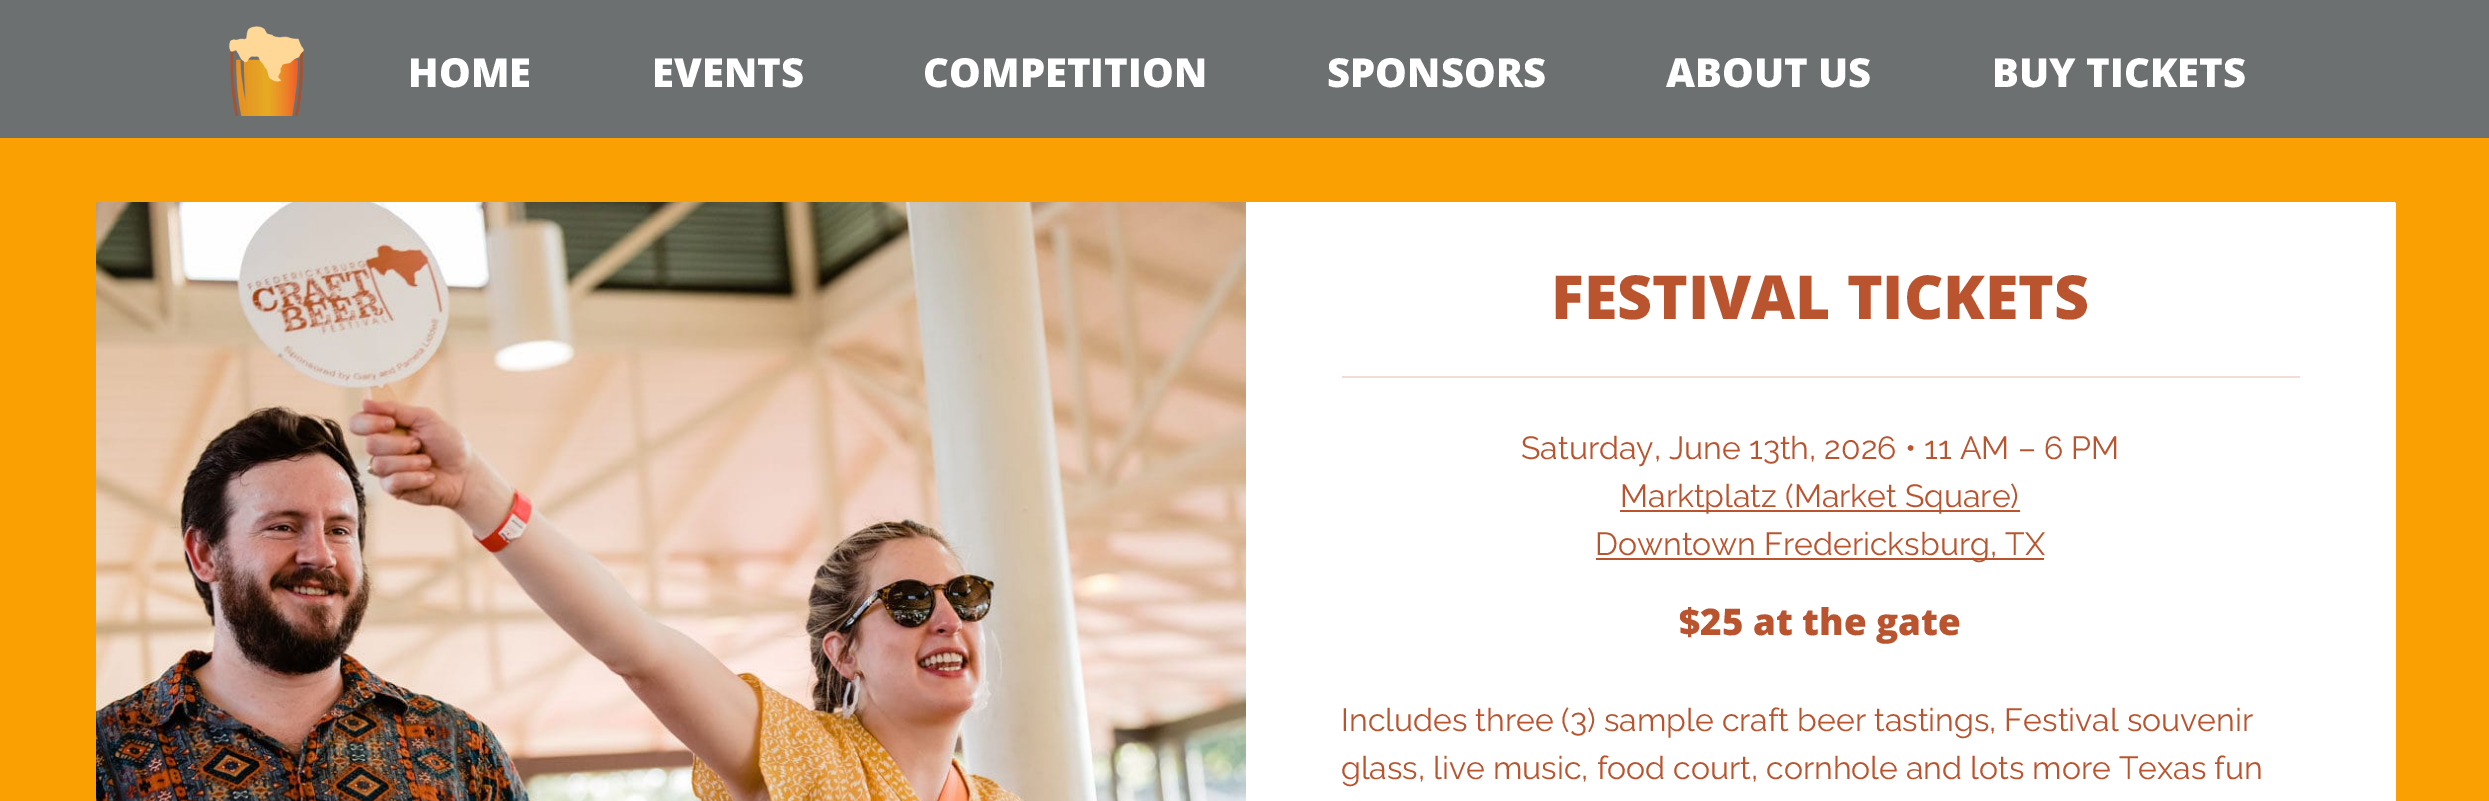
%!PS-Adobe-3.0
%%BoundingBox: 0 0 2489 801
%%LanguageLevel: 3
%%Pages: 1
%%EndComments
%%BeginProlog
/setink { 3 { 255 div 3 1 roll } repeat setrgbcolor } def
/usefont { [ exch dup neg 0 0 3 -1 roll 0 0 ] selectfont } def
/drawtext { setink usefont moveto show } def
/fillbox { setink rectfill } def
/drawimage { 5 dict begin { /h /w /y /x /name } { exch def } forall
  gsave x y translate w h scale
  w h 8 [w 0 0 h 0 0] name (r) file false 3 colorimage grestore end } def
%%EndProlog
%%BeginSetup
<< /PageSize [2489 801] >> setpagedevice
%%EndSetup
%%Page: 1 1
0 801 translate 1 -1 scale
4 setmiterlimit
0 0 2489 801 251 160 2 fillbox
0 0 2489 138 109 112 113 fillbox
(assets/img1.rgb) 229 26 75 90 drawimage
(HOME) 408 87 /OpenSans-ExtraBold 40 255 255 255 drawtext
(EVENTS) 652 87 /OpenSans-ExtraBold 40 255 255 255 drawtext
(COMPETITION) 923 87 /OpenSans-ExtraBold 40 255 255 255 drawtext
(SPONSORS) 1327 87 /OpenSans-ExtraBold 40 255 255 255 drawtext
(ABOUT US) 1666 87 /OpenSans-ExtraBold 40 255 255 255 drawtext
(BUY TICKETS) 1992 87 /OpenSans-ExtraBold 40 255 255 255 drawtext
(assets/img2.rgb) 96 202 1150 599 drawimage
1246 202 moveto 2394 202 lineto 2395 202 2396 203 2396 204 curveto 2396 801 lineto 2396 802 2395 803 2394 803 curveto 1246 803 lineto closepath fill
1342 376 958 2 241 221 213 fillbox
(FESTIVAL TICKETS) 1551 319 /OpenSans-ExtraBold 60.75 185 84 46 drawtext
(Saturday, June 13th, 2026 • 11 AM – 6 PM) 1521 459 /Raleway-Regular 32 185 84 46 drawtext
1620 510 400 2 185 84 46 fillbox
(Marktplatz \(Market Square\)) 1620 507 /Raleway-Regular 32 185 84 46 drawtext
1596 558 448 2 185 84 46 fillbox
(Downtown Fredericksburg, TX) 1595 555 /Raleway-Regular 32 185 84 46 drawtext
($25 at the gate) 1679 635 /OpenSans-ExtraBold 36.75 185 84 46 drawtext
(Includes three \(3\) sample craft beer tastings, Festival souvenir) 1341 731 /Raleway-Regular 32 185 84 46 drawtext
(glass, live music, food court, cornhole and lots more Texas fun) 1341 779 /Raleway-Regular 32 185 84 46 drawtext
showpage
%%EOF
